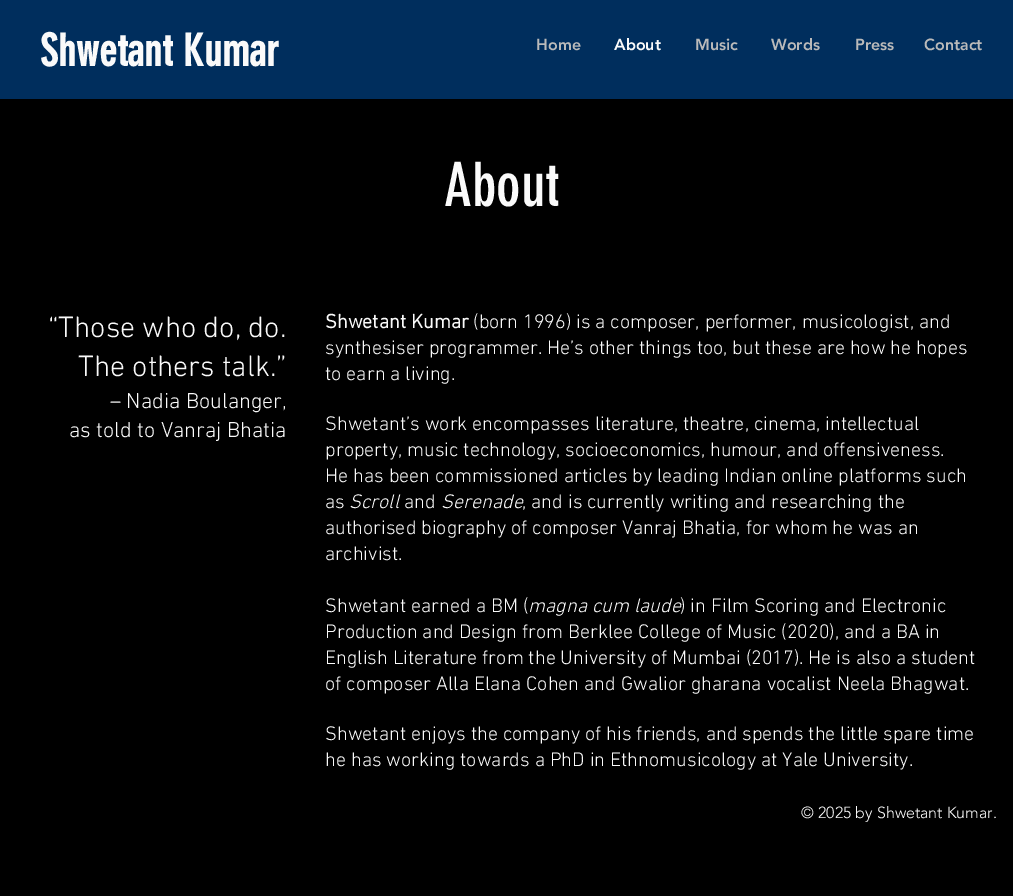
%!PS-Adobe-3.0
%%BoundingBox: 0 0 1013 896
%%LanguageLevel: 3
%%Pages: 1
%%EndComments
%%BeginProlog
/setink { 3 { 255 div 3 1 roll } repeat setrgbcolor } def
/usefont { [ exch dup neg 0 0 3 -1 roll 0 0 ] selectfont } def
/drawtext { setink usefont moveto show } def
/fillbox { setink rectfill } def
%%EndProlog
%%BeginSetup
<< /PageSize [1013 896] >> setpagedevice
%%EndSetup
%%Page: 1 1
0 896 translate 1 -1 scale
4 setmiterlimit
0 0 1013 896 0 0 0 fillbox
0 0 1013 99 0 46 93 fillbox
(Shwetant Kumar) 40 66 /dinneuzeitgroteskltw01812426-Bold 44 250 250 250 drawtext
(Home) 536 50 /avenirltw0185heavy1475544-Black 16 186 186 186 drawtext
(About) 614 50 /avenirltw0185heavy1475544-Black 16 250 250 250 drawtext
(Music) 695 50 /avenirltw0185heavy1475544-Black 16 186 186 186 drawtext
(Words) 771 50 /avenirltw0185heavy1475544-Black 16 186 186 186 drawtext
(Press) 855 50 /avenirltw0185heavy1475544-Black 16 186 186 186 drawtext
(Contact) 924 50 /avenirltw0185heavy1475544-Black 16 186 186 186 drawtext
(About) 444 206 /dinneuzeitgroteskltw01812426-Regular 60 250 250 250 drawtext
(“Those who do, do.) 48 337 /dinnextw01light-Light 30 250 250 250 drawtext
(The others talk.”) 78 376 /dinnextw01light-Light 30 250 250 250 drawtext
(– Nadia Boulanger,) 110 408 /dinnextw01light-Light 22 250 250 250 drawtext
(as told to Vanraj Bhatia) 69 437 /dinnextw01light-Light 22 250 250 250 drawtext
(Shwetant Kumar) 325 328 /dinnextw01light-Bold 20 250 250 250 drawtext
(\(born 1996\) is a composer, performer, musicologist, and) 473 328 /dinnextw01light-Light 20 250 250 250 drawtext
(synthesiser programmer. He’s other things too, but these are how he hopes) 325 354 /dinnextw01light-Light 20 250 250 250 drawtext
(to earn a living.) 325 380 /dinnextw01light-Light 20 250 250 250 drawtext
(Shwetant’s work encompasses literature, theatre, cinema, intellectual) 325 430 /dinnextw01light-Light 20 250 250 250 drawtext
(property, music technology, socioeconomics, humour, and offensiveness.) 325 456 /dinnextw01light-Light 20 250 250 250 drawtext
(He has been commissioned articles by leading Indian online platforms such) 325 482 /dinnextw01light-Light 20 250 250 250 drawtext
(as) 325 508 /dinnextw01light-Light 20 250 250 250 drawtext
(Scroll) 349 508 /dinnextw01light-LightItalic 20 250 250 250 drawtext
(and) 404 508 /dinnextw01light-Light 20 250 250 250 drawtext
(Serenade) 441 508 /dinnextw01light-LightItalic 20 250 250 250 drawtext
(, and is currently writing and researching the) 522 508 /dinnextw01light-Light 20 250 250 250 drawtext
(authorised biography of composer Vanraj Bhatia, for whom he was an) 325 534 /dinnextw01light-Light 20 250 250 250 drawtext
(archivist.) 325 560 /dinnextw01light-Light 20 250 250 250 drawtext
(Shwetant earned a BM \() 325 612 /dinnextw01light-Light 20 250 250 250 drawtext
(magna cum laude) 528 612 /dinnextw01light-LightItalic 20 250 250 250 drawtext
(\) in Film Scoring and Electronic) 680 612 /dinnextw01light-Light 20 250 250 250 drawtext
(Production and Design from Berklee College of Music \(2020\), and a BA in) 325 638 /dinnextw01light-Light 20 250 250 250 drawtext
(English Literature from the University of Mumbai \(2017\). He is also a student) 325 664 /dinnextw01light-Light 20 250 250 250 drawtext
(of composer Alla Elana Cohen and Gwalior gharana vocalist Neela Bhagwat.) 325 690 /dinnextw01light-Light 20 250 250 250 drawtext
(Shwetant enjoys the company of his friends, and spends the little spare time) 325 740 /dinnextw01light-Light 20 250 250 250 drawtext
(he has working towards a PhD in Ethnomusicology at Yale University.) 325 766 /dinnextw01light-Light 20 250 250 250 drawtext
(© 2025 by Shwetant Kumar.) 801 818 /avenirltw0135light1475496-Light 16 250 250 250 drawtext
showpage
%%EOF
